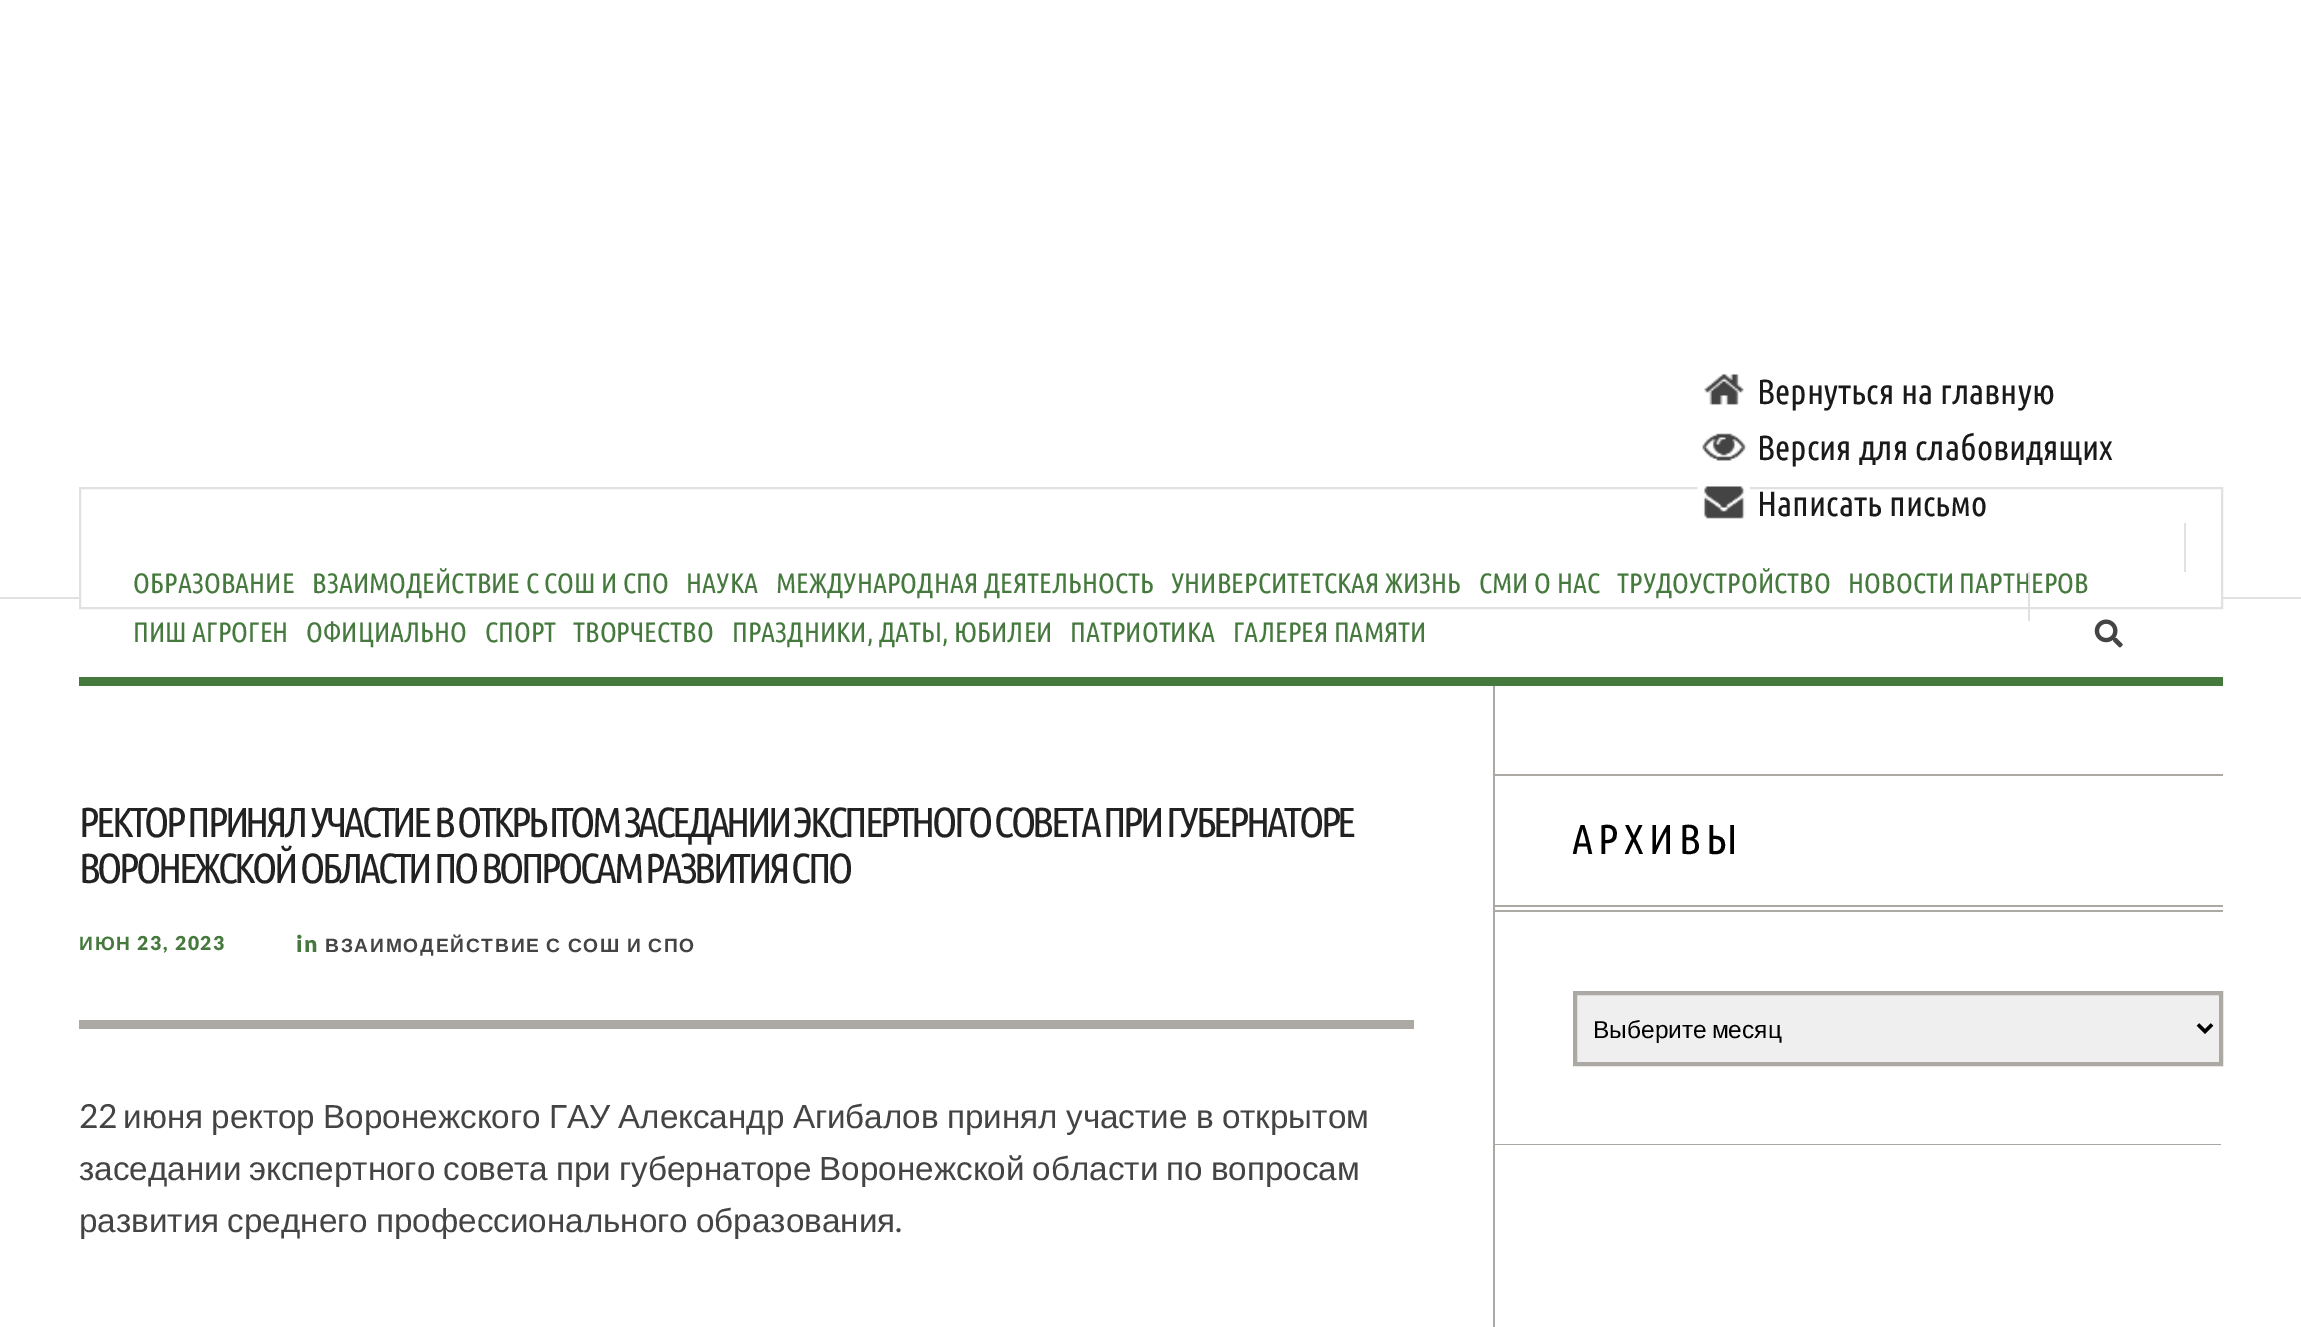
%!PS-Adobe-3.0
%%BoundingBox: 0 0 2301 1327
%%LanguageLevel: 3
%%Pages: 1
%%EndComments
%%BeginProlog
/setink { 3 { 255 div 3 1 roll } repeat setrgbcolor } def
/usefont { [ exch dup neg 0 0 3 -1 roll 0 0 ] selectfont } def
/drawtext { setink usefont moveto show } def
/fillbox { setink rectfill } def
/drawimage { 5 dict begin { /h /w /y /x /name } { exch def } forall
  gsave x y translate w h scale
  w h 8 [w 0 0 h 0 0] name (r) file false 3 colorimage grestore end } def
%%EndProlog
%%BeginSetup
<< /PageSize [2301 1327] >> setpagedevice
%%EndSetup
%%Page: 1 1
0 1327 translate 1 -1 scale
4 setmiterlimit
0 0 2301 1327 255 255 255 fillbox
0 597 2301 2 225 225 225 fillbox
(assets/img1.rgb) 1704 374 40 31 drawimage
(Вернуться на главную) 1757 404 /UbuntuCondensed-Regular 35 26 26 26 drawtext
(assets/img2.rgb) 1702 433 45 28 drawimage
(Версия для слабовидящих) 1757 460 /UbuntuCondensed-Regular 35 26 26 26 drawtext
81 597 2140 2 255 255 255 fillbox
225 225 225 setink
2 setlinewidth
80 488 2142 120 rectstroke
(assets/img3.rgb) 1697 486 53 33 drawimage
(Написать письмо) 1757 516 /UbuntuCondensed-Regular 35 26 26 26 drawtext
2184 523 2 49 225 225 225 fillbox
(ОБРАЗОВАНИЕ) 133 593 /UbuntuCondensed-Regular 28 70 121 62 drawtext
(ВЗАИМОДЕЙСТВИЕ С СОШ И СПО) 312 593 /UbuntuCondensed-Regular 28 70 121 62 drawtext
(НАУКА) 686 593 /UbuntuCondensed-Regular 28 70 121 62 drawtext
(МЕЖДУНАРОДНАЯ ДЕЯТЕЛЬНОСТЬ) 776 593 /UbuntuCondensed-Regular 28 70 121 62 drawtext
(УНИВЕРСИТЕТСКАЯ ЖИЗНЬ) 1171 593 /UbuntuCondensed-Regular 28 70 121 62 drawtext
(СМИ О НАС) 1479 593 /UbuntuCondensed-Regular 28 70 121 62 drawtext
(ТРУДОУСТРОЙСТВО) 1617 593 /UbuntuCondensed-Regular 28 70 121 62 drawtext
(НОВОСТИ ПАРТНЕРОВ) 1848 593 /UbuntuCondensed-Regular 28 70 121 62 drawtext
(ПИШ АГРОГЕН) 133 642 /UbuntuCondensed-Regular 28 70 121 62 drawtext
(ОФИЦИАЛЬНО) 306 642 /UbuntuCondensed-Regular 28 70 121 62 drawtext
(СПОРТ) 485 642 /UbuntuCondensed-Regular 28 70 121 62 drawtext
(ТВОРЧЕСТВО) 573 642 /UbuntuCondensed-Regular 28 70 121 62 drawtext
(ПРАЗДНИКИ, ДАТЫ, ЮБИЛЕИ) 732 642 /UbuntuCondensed-Regular 28 70 121 62 drawtext
(ПАТРИОТИКА) 1070 642 /UbuntuCondensed-Regular 28 70 121 62 drawtext
(ГАЛЕРЕЯ ПАМЯТИ) 1233 642 /UbuntuCondensed-Regular 28 70 121 62 drawtext
2028 572 2 49 225 225 225 fillbox
(assets/img4.rgb) 2094 619 29 29 drawimage
79 677 2144 9 70 121 62 fillbox
1493 686 2 641 172 169 164 fillbox
/UbuntuCondensed-Regular 42 usefont
34 34 34 setink
79 837 moveto -3.5 0 (РЕКТОР ПРИНЯЛ УЧАСТИЕ В ОТКРЫТОМ ЗАСЕДАНИИ ЭКСПЕРТНОГО СОВЕТА ПРИ ГУБЕРНАТОРЕ) ashow
79 883 moveto -3.5 0 (ВОРОНЕЖСКОЙ ОБЛАСТИ ПО ВОПРОСАМ РАЗВИТИЯ СПО) ashow
/LiberationSans-Bold 19.25 usefont
70 121 62 setink
79 950 moveto 1.75 0 (ИЮН) ashow
/Lato-Black 19.25 usefont
137 950 moveto 1.75 0 (23, 2023) ashow
/Lato-Black 23 usefont
296 952 moveto 1.75 0 (in) ashow
/LiberationSans-Bold 19.25 usefont
68 68 68 setink
325 952 moveto -1.5 0 32 1.75 0 (ВЗАИМОДЕЙСТВИЕ С СОШ И СПО) awidthshow
79 1020 1335 9 172 169 164 fillbox
(22) 79 1128 /Lato-Regular 33.25 68 68 68 drawtext
/LiberationSans-Regular 33.25 usefont
123 1128 moveto -0.9 0 32 (июня ректор Воронежского ГАУ Александр Агибалов принял участие в открытом) widthshow
79 1180 moveto -1.25 0 32 (заседании экспертного совета при губернаторе Воронежской области по вопросам) widthshow
79 1232 moveto -1.25 0 32 (развития среднего профессионального образования) widthshow
(.) 895 1232 /Lato-Regular 33.25 68 68 68 drawtext
172 169 164 setink
1493 686 moveto 1493 1145 lineto 2221 1145 lineto 2221 1144 lineto 1494 1144 lineto 1494 686 lineto closepath fill
1495 774 728 2 172 169 164 fillbox
1495 905 728 2 172 169 164 fillbox
1495 910 728 2 172 169 164 fillbox
/UbuntuCondensed-Regular 42 usefont
0 0 0 setink
1572 854 moveto 5.25 0 (АРХИВЫ) ashow
239 239 239 setink
1575 993 moveto 2221 993 lineto 2221 1064 lineto 1575 1064 lineto closepath gsave fill grestore
172 169 164 setink
4 setlinewidth
stroke
0 0 0 setink
3.5 setlinewidth
2198 1024.5 moveto 2205 1031.5 lineto 2212 1024.5 lineto stroke
/LiberationSans-Regular 24.5 usefont
1593 1038 moveto -2 0 32 (Выберите месяц) widthshow
showpage
%%EOF
